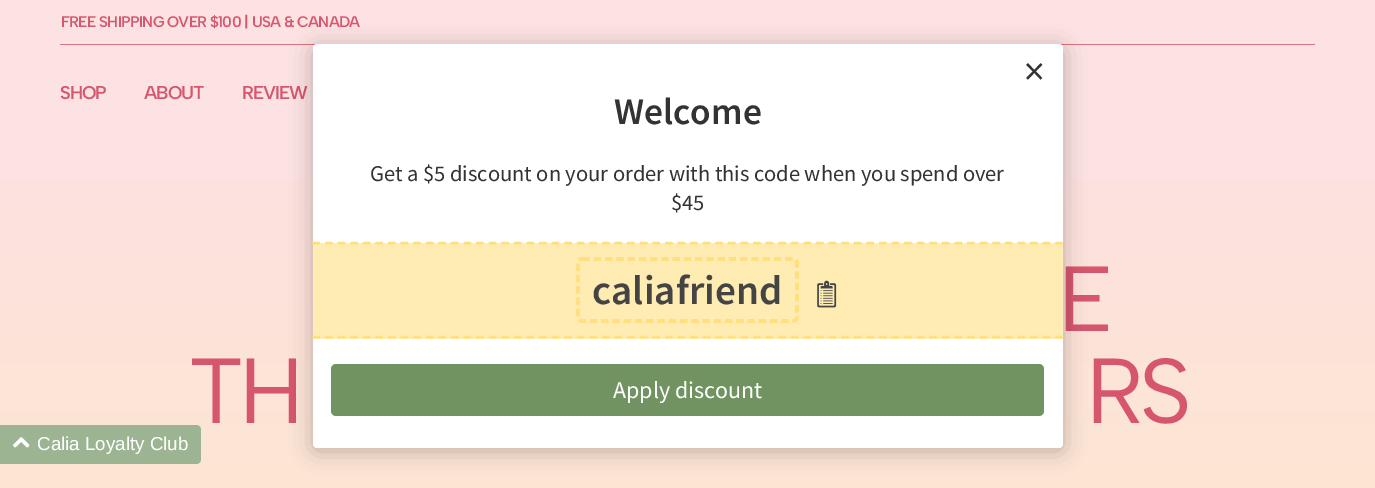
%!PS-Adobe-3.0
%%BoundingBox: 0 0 1375 488
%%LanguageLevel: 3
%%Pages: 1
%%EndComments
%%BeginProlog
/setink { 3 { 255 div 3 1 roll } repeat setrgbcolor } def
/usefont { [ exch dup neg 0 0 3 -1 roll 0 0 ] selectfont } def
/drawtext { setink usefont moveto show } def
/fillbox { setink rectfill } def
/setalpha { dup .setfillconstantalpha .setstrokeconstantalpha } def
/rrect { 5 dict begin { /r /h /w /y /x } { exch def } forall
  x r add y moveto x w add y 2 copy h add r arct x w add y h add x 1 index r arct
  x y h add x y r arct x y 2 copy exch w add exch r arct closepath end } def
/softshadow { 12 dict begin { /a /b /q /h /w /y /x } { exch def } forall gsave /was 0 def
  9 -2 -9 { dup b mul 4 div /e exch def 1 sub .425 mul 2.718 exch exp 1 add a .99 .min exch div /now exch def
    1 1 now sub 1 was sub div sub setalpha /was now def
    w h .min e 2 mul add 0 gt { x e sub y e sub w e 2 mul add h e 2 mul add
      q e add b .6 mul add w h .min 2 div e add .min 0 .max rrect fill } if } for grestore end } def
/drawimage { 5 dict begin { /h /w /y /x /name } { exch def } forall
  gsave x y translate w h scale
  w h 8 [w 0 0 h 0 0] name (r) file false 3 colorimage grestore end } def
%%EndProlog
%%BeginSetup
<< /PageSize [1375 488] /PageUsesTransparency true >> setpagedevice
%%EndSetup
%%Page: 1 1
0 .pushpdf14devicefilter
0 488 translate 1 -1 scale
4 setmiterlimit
0 0 1375 488 252 226 226 fillbox
60 44 1255 1 221 114 133 fillbox
/AlbertSans-SemiBold 15.4 usefont
214 86 109 setink
61 27 moveto -0.75 0 (FREE SHIPPING OVER $100 | USA & CANADA) ashow
/AlbertSans-SemiBold 18.5 usefont
60 99 moveto -1 0 (SHOP) ashow
144 99 moveto -1 0 (ABOUT) ashow
242 99 moveto -1 0 (REVIEW) ashow
gsave 0 179 moveto 1375 179 lineto 1375 488 lineto 0 488 lineto closepath clip newpath
<< /ShadingType 2 /ColorSpace /DeviceRGB /Coords [688 141 688 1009] /Extend [true true] /Function << /FunctionType 2 /Domain [0 1] /C0 [0.988 0.882 0.882] /C1 [1 0.933 0.749] /N 1 >> >> shfill grestore
/AlbertSans-Regular 92 usefont
1058 331 moveto -5 0 (E) ashow
188 423 moveto -5 0 (TH) ashow
1086 423 moveto -5 0 (RS) ashow
0 0 0 setink
313 48 750 403 4 11 0.25 softshadow
255 255 255 setink
313 44 750 404 4 rrect fill
(×) 1024 85 /SourceSansPro-Regular 41.25 51 51 51 drawtext
(Welcome) 614 124 /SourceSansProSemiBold-SemiBold 37.5 51 51 51 drawtext
(Get a $5 discount on your order with this code when you spend over) 370 181 /SourceSansPro-Regular 22.5 51 51 51 drawtext
($45) 671 210 /SourceSansPro-Regular 22.5 51 51 51 drawtext
313 243 750 96 255 236 179 fillbox
255 223 128 setink
2.5 setlinewidth
[7.5 5.09] 0 setdash
312.5 243 moveto 1062.5 243 lineto stroke
312.5 337 moveto 1062.5 337 lineto stroke
3.8 setlinewidth
[7.5 3.75] 0 setdash
582.5 259 moveto 792.5 259 lineto 795 259 797 260.5 797 263 curveto 797 317 lineto 797 319.5 795 321 792.5 321 curveto 582.5 321 lineto 580 321 578 319.5 578 317 curveto 578 263 lineto 578 260.5 580 259 582.5 259 curveto closepath stroke
(caliafriend) 592 304 /SourceSansProSemiBold-SemiBold 41.25 68 68 68 drawtext
(assets/img1.rgb) 817 280 20 28 drawimage
113 147 98 setink
331 364 713 52 5 rrect fill
(Apply discount) 613 398 /SourceSansPro-Regular 24 255 255 255 drawtext
156 180 146 setink
0 425 moveto 196 425 lineto 199 425 201 427 201 430 curveto 201 459 lineto 201 462 199 464 196 464 curveto 0 464 lineto closepath fill
(assets/img2.rgb) 13 437 17 11 drawimage
(Calia Loyalty Club) 37 450 /LiberationSans-Regular 18.75 255 255 255 drawtext
.poppdf14devicefilter showpage
%%EOF
